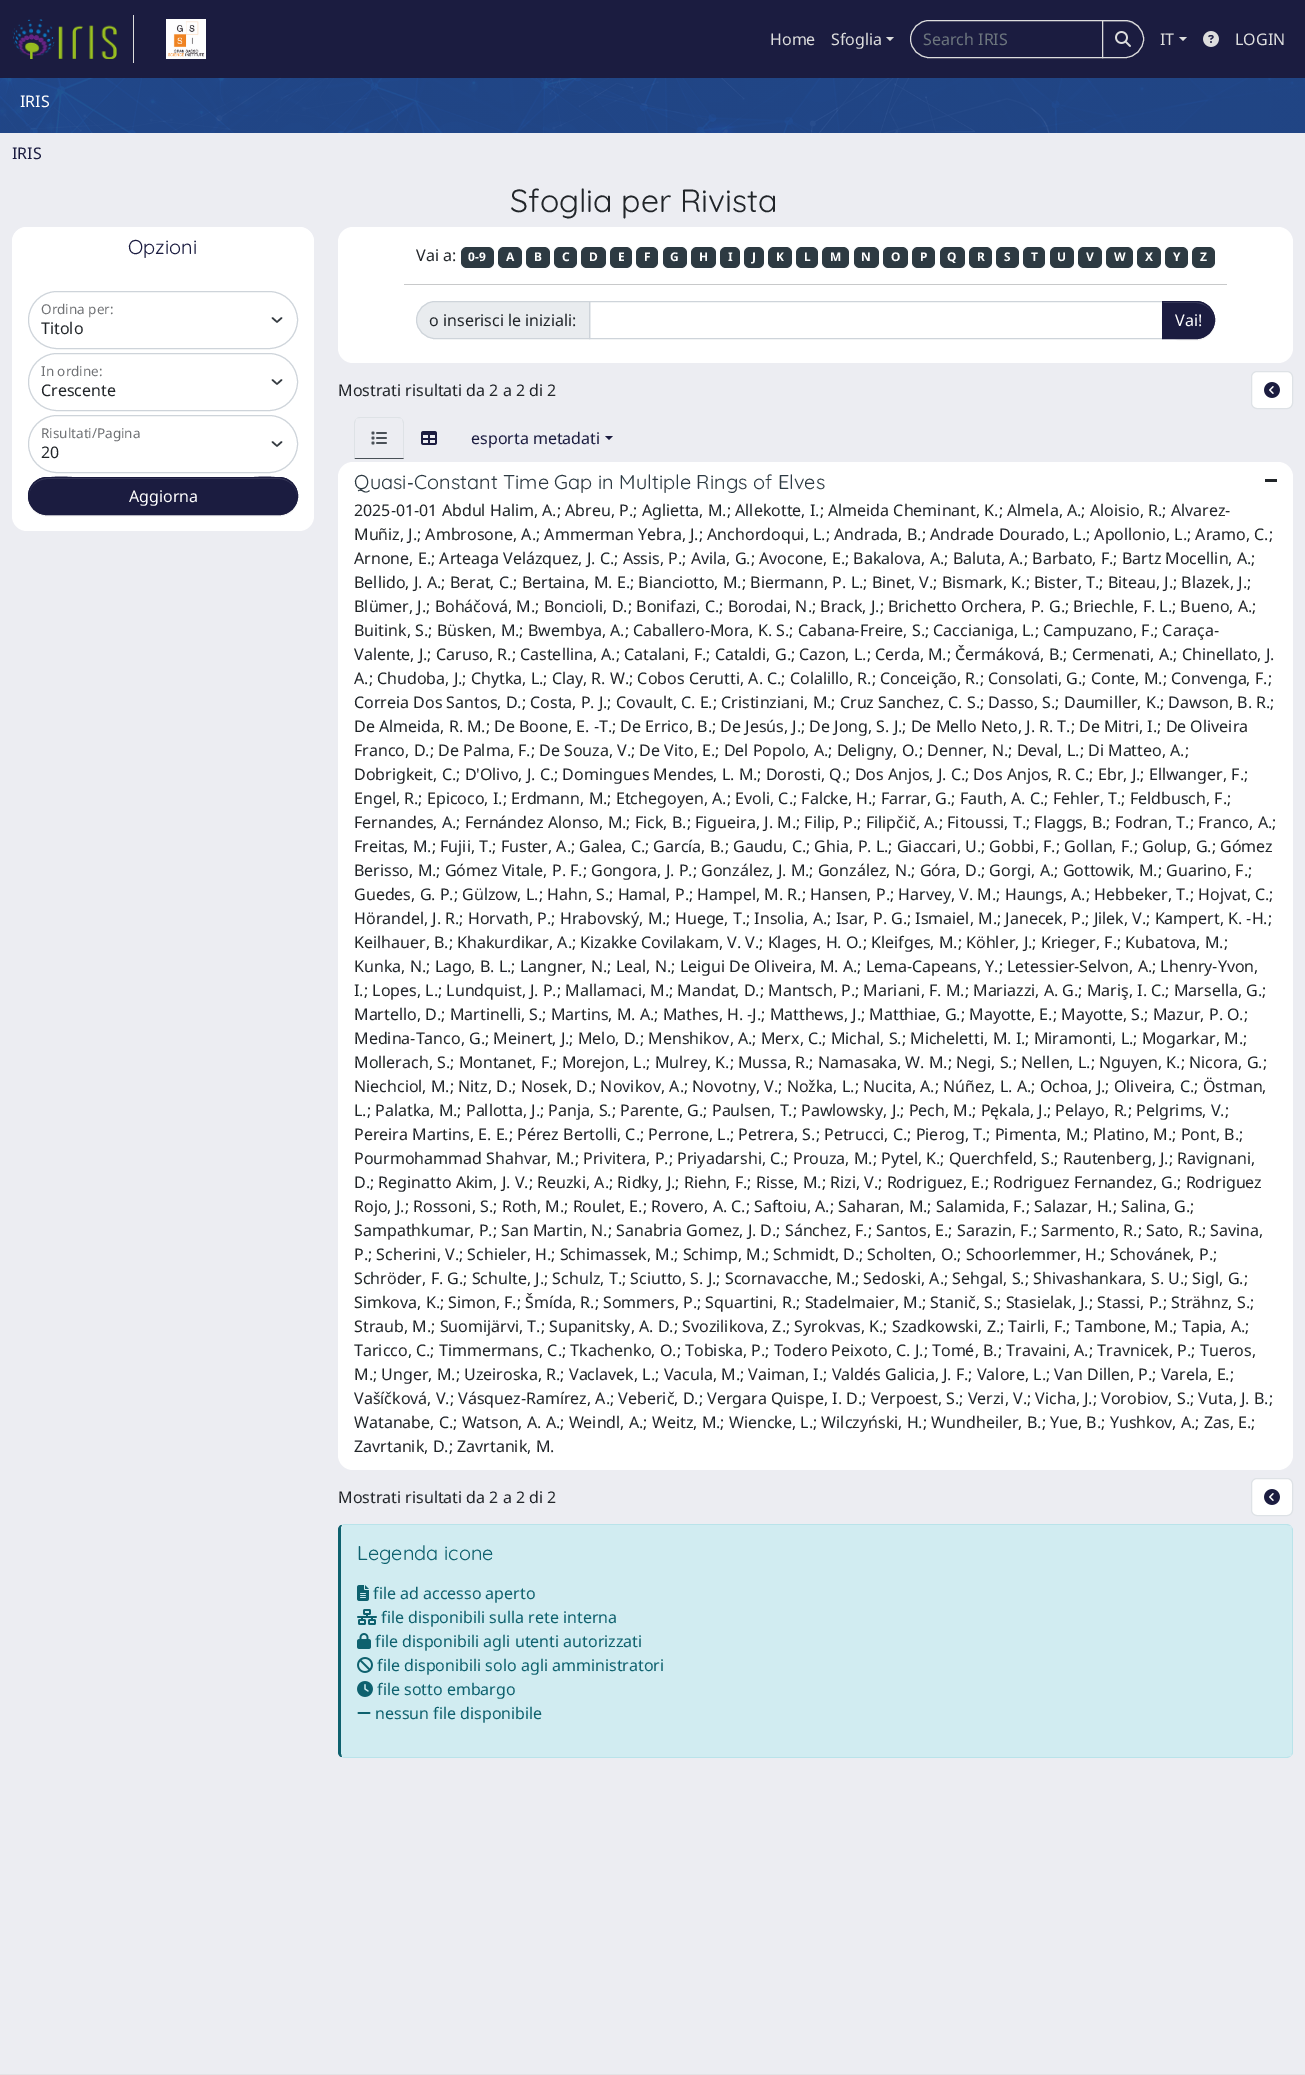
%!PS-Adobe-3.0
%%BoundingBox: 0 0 1305 2075
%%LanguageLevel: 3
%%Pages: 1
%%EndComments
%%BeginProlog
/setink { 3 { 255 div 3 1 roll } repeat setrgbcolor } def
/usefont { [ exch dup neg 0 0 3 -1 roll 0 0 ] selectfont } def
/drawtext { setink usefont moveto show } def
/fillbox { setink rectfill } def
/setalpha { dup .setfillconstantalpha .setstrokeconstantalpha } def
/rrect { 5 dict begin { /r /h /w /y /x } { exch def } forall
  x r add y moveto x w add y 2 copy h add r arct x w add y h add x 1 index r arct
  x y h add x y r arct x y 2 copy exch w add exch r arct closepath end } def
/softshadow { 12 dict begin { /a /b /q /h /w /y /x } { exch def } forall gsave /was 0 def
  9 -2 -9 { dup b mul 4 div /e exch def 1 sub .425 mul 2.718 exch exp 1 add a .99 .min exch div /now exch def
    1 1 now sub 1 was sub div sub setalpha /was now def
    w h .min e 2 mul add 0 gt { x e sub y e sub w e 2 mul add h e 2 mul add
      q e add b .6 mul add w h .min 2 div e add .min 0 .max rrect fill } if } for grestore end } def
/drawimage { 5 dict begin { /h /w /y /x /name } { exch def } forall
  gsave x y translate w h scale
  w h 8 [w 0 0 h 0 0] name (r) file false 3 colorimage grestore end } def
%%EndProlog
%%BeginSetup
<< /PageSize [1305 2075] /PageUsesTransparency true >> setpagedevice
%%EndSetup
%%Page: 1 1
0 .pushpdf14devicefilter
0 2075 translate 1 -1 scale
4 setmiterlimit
0 0 1305 2075 236 237 242 fillbox
0 0 1305 78 27 28 64 fillbox
133 15 1 48 221 221 221 fillbox
(assets/img1.rgb) 12 19 105 40 drawimage
(assets/img2.rgb) 166 19 40 40 drawimage
(Home) 770 45 /NotoSans-Regular 16 221 221 221 drawtext
(Sfoglia) 831 45 /NotoSans-Regular 16 221 221 221 drawtext
886 37 moveto 894 37 lineto 890 41 lineto closepath fill
929 20.5 moveto 1102.5 20.5 lineto 1102.5 57.5 lineto 929 57.5 lineto 919 57.5 910.5 49 910.5 39 curveto 910.5 29 919 20.5 929 20.5 curveto closepath stroke
(Search IRIS) 923 45 /NotoSans-Regular 16 108 117 125 drawtext
0 0 0 setink
1102 21 42 38 19 0.5 0.07 softshadow
27 28 64 setink
1102 20 moveto 1125 20 lineto 1135.5 20 1144 28.5 1144 39 curveto 1144 49.5 1135.5 58 1125 58 curveto 1102 58 lineto closepath fill
61 62 93 setink
1103 22 moveto 1125 22 lineto 1135 22 1143 30 1143 39 curveto 1143 31 1137 23 1129 21 curveto 1103 21 lineto closepath fill
221 221 221 setink
1102.5 20.5 moveto 1125 20.5 lineto 1135 20.5 1143.5 29 1143.5 39 curveto 1143.5 49 1135 57.5 1125 57.5 curveto 1102.5 57.5 lineto closepath stroke
(assets/img3.rgb) 1115 31 16 16 drawimage
(IT) 1160 45 /NotoSans-Regular 16 221 221 221 drawtext
1179 37 moveto 1187 37 lineto 1183 41 lineto closepath fill
(assets/img4.rgb) 1203 31 16 16 drawimage
(LOGIN) 1235 45 /NotoSans-Regular 16 221 221 221 drawtext
(assets/img5.rgb) 0 78 1305 55 drawimage
(IRIS) 20 107 /NotoSans-Regular 16 255 255 255 drawtext
(IRIS) 12 159 /NotoSans-Regular 16 27 28 64 drawtext
(Sfoglia per Rivista) 510 212 /Quicksand-Regular 32 33 37 41 drawtext
255 255 255 setink
12 227 302 304 15 rrect fill
27 227 moveto 299 227 lineto 307.5 227 314 233.5 314 242 curveto 314 275 lineto 12 275 lineto 12 242 lineto 12 233.5 18.5 227 27 227 curveto closepath fill
(Opzioni) 128 254 /Quicksand-Regular 20 27 28 64 drawtext
52 58 64 setink
1.5 setlinewidth
1 setlinecap
1 setlinejoin
272.5 318 moveto 277 322 lineto 281.5 318 lineto stroke
206 212 218 setink
1 setlinewidth
0 setlinecap
0 setlinejoin
28.5 291.5 269 57 28.5 rrect stroke
(Ordina per:) 41 314 /NotoSans-Regular 13.5 111 113 116 drawtext
(Titolo) 41 334 /NotoSans-Regular 16 33 37 41 drawtext
52 58 64 setink
1.5 setlinewidth
1 setlinecap
1 setlinejoin
272.5 380 moveto 277 384 lineto 281.5 380 lineto stroke
206 212 218 setink
1 setlinewidth
0 setlinecap
0 setlinejoin
28.5 353.5 269 57 28.5 rrect stroke
(In ordine:) 41 376 /NotoSans-Regular 13.5 111 113 116 drawtext
(Crescente) 41 396 /NotoSans-Regular 16 33 37 41 drawtext
52 58 64 setink
1.5 setlinewidth
1 setlinecap
1 setlinejoin
272.5 442 moveto 277 446 lineto 281.5 442 lineto stroke
206 212 218 setink
1 setlinewidth
0 setlinecap
0 setlinejoin
28.5 415.5 269 57 28.5 rrect stroke
(Risultati/Pagina) 41 438 /NotoSans-Regular 13.5 111 113 116 drawtext
(20) 41 458 /NotoSans-Regular 16 33 37 41 drawtext
0 0 0 setink
28 478 270 38 19 0.5 0.07 softshadow
27 28 64 setink
28 477 270 38 19 rrect fill
61 62 93 setink
47 479 moveto 279 479 lineto 289 479 297 487 297 496 curveto 298 469 252 478 240 478 curveto 86 478 lineto 74 478 28 469 29 496 curveto 29 487 37 479 47 479 curveto closepath fill
27 28 64 setink
28.5 477.5 269 37 18.5 rrect stroke
(Aggiorna) 129 502 /NotoSans-Regular 16 255 255 255 drawtext
338 227 955 136 15 rrect fill
(Vai a:) 416 261 /NotoSans-Regular 16 33 37 41 drawtext
45 58 66 setink
461 247 33 21 6 rrect fill
(0-9) 468 261 /NotoSans-Bold 12 255 255 255 drawtext
45 58 66 setink
498 247 24 21 6 rrect fill
(A) 506 261 /NotoSans-Bold 12 255 255 255 drawtext
45 58 66 setink
526 247 24 21 6 rrect fill
(B) 534 261 /NotoSans-Bold 12 255 255 255 drawtext
45 58 66 setink
554 247 23 21 6 rrect fill
(C) 562 261 /NotoSans-Bold 12 255 255 255 drawtext
45 58 66 setink
581 247 25 21 6 rrect fill
(D) 589 261 /NotoSans-Bold 12 255 255 255 drawtext
45 58 66 setink
610 247 22 21 6 rrect fill
(E) 618 261 /NotoSans-Bold 12 255 255 255 drawtext
45 58 66 setink
636 247 22 21 6 rrect fill
(F) 644 261 /NotoSans-Bold 12 255 255 255 drawtext
45 58 66 setink
663 247 24 21 6 rrect fill
(G) 670 261 /NotoSans-Bold 12 255 255 255 drawtext
45 58 66 setink
691 247 25 21 6 rrect fill
(H) 699 261 /NotoSans-Bold 12 255 255 255 drawtext
45 58 66 setink
720 247 20 21 6 rrect fill
(I) 728 261 /NotoSans-Bold 12 255 255 255 drawtext
45 58 66 setink
744 247 20 21 6 rrect fill
(J) 752 261 /NotoSans-Bold 12 255 255 255 drawtext
45 58 66 setink
768 247 24 21 6 rrect fill
(K) 776 261 /NotoSans-Bold 12 255 255 255 drawtext
45 58 66 setink
796 247 22 21 6 rrect fill
(L) 804 261 /NotoSans-Bold 12 255 255 255 drawtext
45 58 66 setink
822 247 27 21 6 rrect fill
(M) 830 261 /NotoSans-Bold 12 255 255 255 drawtext
45 58 66 setink
854 247 25 21 6 rrect fill
(N) 861 261 /NotoSans-Bold 12 255 255 255 drawtext
45 58 66 setink
883 247 25 21 6 rrect fill
(O) 891 261 /NotoSans-Bold 12 255 255 255 drawtext
45 58 66 setink
912 247 23 21 6 rrect fill
(P) 920 261 /NotoSans-Bold 12 255 255 255 drawtext
45 58 66 setink
940 247 25 21 6 rrect fill
(Q) 947 261 /NotoSans-Bold 12 255 255 255 drawtext
45 58 66 setink
969 247 23 21 6 rrect fill
(R) 977 261 /NotoSans-Bold 12 255 255 255 drawtext
45 58 66 setink
996 247 23 21 6 rrect fill
(S) 1004 261 /NotoSans-Bold 12 255 255 255 drawtext
45 58 66 setink
1023 247 22 21 6 rrect fill
(T) 1031 261 /NotoSans-Bold 12 255 255 255 drawtext
45 58 66 setink
1050 247 24 21 6 rrect fill
(U) 1057 261 /NotoSans-Bold 12 255 255 255 drawtext
45 58 66 setink
1078 247 24 21 6 rrect fill
(V) 1086 261 /NotoSans-Bold 12 255 255 255 drawtext
45 58 66 setink
1106 247 27 21 6 rrect fill
(W) 1114 261 /NotoSans-Bold 12 255 255 255 drawtext
45 58 66 setink
1137 247 24 21 6 rrect fill
(X) 1145 261 /NotoSans-Bold 12 255 255 255 drawtext
45 58 66 setink
1165 247 23 21 6 rrect fill
(Y) 1173 261 /NotoSans-Bold 12 255 255 255 drawtext
45 58 66 setink
1192 247 23 21 6 rrect fill
(Z) 1200 261 /NotoSans-Bold 12 255 255 255 drawtext
404 284 823 1 200 201 202 fillbox
233 236 239 setink
435 301.5 moveto 589.5 301.5 lineto 589.5 338.5 lineto 435 338.5 lineto 425 338.5 416.5 330 416.5 320 curveto 416.5 310 425 301.5 435 301.5 curveto closepath gsave fill grestore
206 212 218 setink
stroke
(o inserisci le iniziali:) 429 326 /NotoSans-Regular 16 33 37 41 drawtext
206 212 218 setink
589.5 301.5 573 37 rectstroke
0 0 0 setink
1162 302 53 38 19 0.5 0.07 softshadow
27 28 64 setink
1162 301 moveto 1196 301 lineto 1206.5 301 1215 309.5 1215 320 curveto 1215 330.5 1206.5 339 1196 339 curveto 1162 339 lineto closepath fill
61 62 93 setink
1163 303 moveto 1196 303 lineto 1206 303 1214 311 1214 320 curveto 1214 312 1208 304 1200 302 curveto 1163 302 lineto closepath fill
27 28 64 setink
1162.5 301.5 moveto 1196 301.5 lineto 1206 301.5 1214.5 310 1214.5 320 curveto 1214.5 330 1206 338.5 1196 338.5 curveto 1162.5 338.5 lineto closepath stroke
(Vai!) 1175 326 /NotoSans-Regular 16 255 255 255 drawtext
(Mostrati risultati da 2 a 2 di 2) 338 396 /NotoSans-Regular 16 33 37 41 drawtext
255 255 255 setink
1251.5 371.5 41 37 5.5 rrect gsave fill grestore
222 226 230 setink
stroke
(assets/img6.rgb) 1264 382 16 16 drawimage
360 417 moveto 358 417 357 418 356 419 curveto 357 418 358 418 360 418 curveto 398 418 lineto 400 418 401 418 402 419 curveto 401 418 400 417 398 417 curveto closepath 404 459 moveto 404 423 lineto 404 422 403 420 402 419 curveto 402 420 403 422 403 423 curveto 403 458 lineto closepath fill
73 80 87 setink
404 459 moveto 403 458 lineto 355 458 lineto 354 459 lineto closepath fill
222 226 230 setink
354 459 moveto 355 458 lineto 355 423 lineto 355 422 356 420 356 419 curveto 355 420 354 422 354 423 curveto closepath fill
(assets/img7.rgb) 371 431 16 14 drawimage
(assets/img8.rgb) 421 431 16 14 drawimage
(esporta metadati) 471 444 /NotoSans-Regular 16 27 28 64 drawtext
605 436 moveto 613 436 lineto 609 440 lineto closepath fill
255 255 255 setink
338 462 955 1008 15 rrect fill
(Quasi) 354 489 /Quicksand-Regular 20 45 58 66 drawtext
(‐) 407 489 /LiberationSans-Regular 20 45 58 66 drawtext
(Constant Time Gap in Multiple Rings of Elves) 414 489 /Quicksand-Regular 20 45 58 66 drawtext
1265 479 12 3 33 37 41 fillbox
(2025-01-01 Abdul Halim, A.; Abreu, P.; Aglietta, M.; Allekotte, I.; Almeida Cheminant, K.; Almela, A.; Aloisio, R.; Alvarez-) 354 516 /NotoSans-Regular 16 33 37 41 drawtext
(Muñiz, J.; Ambrosone, A.; Ammerman Yebra, J.; Anchordoqui, L.; Andrada, B.; Andrade Dourado, L.; Apollonio, L.; Aramo, C.;) 354 540 /NotoSans-Regular 16 33 37 41 drawtext
(Arnone, E.; Arteaga Velázquez, J. C.; Assis, P.; Avila, G.; Avocone, E.; Bakalova, A.; Baluta, A.; Barbato, F.; Bartz Mocellin, A.;) 354 564 /NotoSans-Regular 16 33 37 41 drawtext
(Bellido, J. A.; Berat, C.; Bertaina, M. E.; Bianciotto, M.; Biermann, P. L.; Binet, V.; Bismark, K.; Bister, T.; Biteau, J.; Blazek, J.;) 354 588 /NotoSans-Regular 16 33 37 41 drawtext
(Blümer, J.; Boháčová, M.; Boncioli, D.; Bonifazi, C.; Borodai, N.; Brack, J.; Brichetto Orchera, P. G.; Briechle, F. L.; Bueno, A.;) 354 612 /NotoSans-Regular 16 33 37 41 drawtext
(Buitink, S.; Büsken, M.; Bwembya, A.; Caballero-Mora, K. S.; Cabana-Freire, S.; Caccianiga, L.; Campuzano, F.; Caraça-) 354 636 /NotoSans-Regular 16 33 37 41 drawtext
(Valente, J.; Caruso, R.; Castellina, A.; Catalani, F.; Cataldi, G.; Cazon, L.; Cerda, M.; Čermáková, B.; Cermenati, A.; Chinellato, J.) 354 660 /NotoSans-Regular 16 33 37 41 drawtext
(A.; Chudoba, J.; Chytka, L.; Clay, R. W.; Cobos Cerutti, A. C.; Colalillo, R.; Conceição, R.; Consolati, G.; Conte, M.; Convenga, F.;) 354 684 /NotoSans-Regular 16 33 37 41 drawtext
(Correia Dos Santos, D.; Costa, P. J.; Covault, C. E.; Cristinziani, M.; Cruz Sanchez, C. S.; Dasso, S.; Daumiller, K.; Dawson, B. R.;) 354 708 /NotoSans-Regular 16 33 37 41 drawtext
(De Almeida, R. M.; De Boone, E. -T.; De Errico, B.; De Jesús, J.; De Jong, S. J.; De Mello Neto, J. R. T.; De Mitri, I.; De Oliveira) 354 732 /NotoSans-Regular 16 33 37 41 drawtext
(Franco, D.; De Palma, F.; De Souza, V.; De Vito, E.; Del Popolo, A.; Deligny, O.; Denner, N.; Deval, L.; Di Matteo, A.;) 354 756 /NotoSans-Regular 16 33 37 41 drawtext
(Dobrigkeit, C.; D'Olivo, J. C.; Domingues Mendes, L. M.; Dorosti, Q.; Dos Anjos, J. C.; Dos Anjos, R. C.; Ebr, J.; Ellwanger, F.;) 354 780 /NotoSans-Regular 16 33 37 41 drawtext
(Engel, R.; Epicoco, I.; Erdmann, M.; Etchegoyen, A.; Evoli, C.; Falcke, H.; Farrar, G.; Fauth, A. C.; Fehler, T.; Feldbusch, F.;) 354 804 /NotoSans-Regular 16 33 37 41 drawtext
(Fernandes, A.; Fernández Alonso, M.; Fick, B.; Figueira, J. M.; Filip, P.; Filipčič, A.; Fitoussi, T.; Flaggs, B.; Fodran, T.; Franco, A.;) 354 828 /NotoSans-Regular 16 33 37 41 drawtext
(Freitas, M.; Fujii, T.; Fuster, A.; Galea, C.; García, B.; Gaudu, C.; Ghia, P. L.; Giaccari, U.; Gobbi, F.; Gollan, F.; Golup, G.; Gómez) 354 852 /NotoSans-Regular 16 33 37 41 drawtext
(Berisso, M.; Gómez Vitale, P. F.; Gongora, J. P.; González, J. M.; González, N.; Góra, D.; Gorgi, A.; Gottowik, M.; Guarino, F.;) 354 876 /NotoSans-Regular 16 33 37 41 drawtext
(Guedes, G. P.; Gülzow, L.; Hahn, S.; Hamal, P.; Hampel, M. R.; Hansen, P.; Harvey, V. M.; Haungs, A.; Hebbeker, T.; Hojvat, C.;) 354 900 /NotoSans-Regular 16 33 37 41 drawtext
(Hörandel, J. R.; Horvath, P.; Hrabovský, M.; Huege, T.; Insolia, A.; Isar, P. G.; Ismaiel, M.; Janecek, P.; Jilek, V.; Kampert, K. -H.;) 354 924 /NotoSans-Regular 16 33 37 41 drawtext
(Keilhauer, B.; Khakurdikar, A.; Kizakke Covilakam, V. V.; Klages, H. O.; Kleifges, M.; Köhler, J.; Krieger, F.; Kubatova, M.;) 354 948 /NotoSans-Regular 16 33 37 41 drawtext
(Kunka, N.; Lago, B. L.; Langner, N.; Leal, N.; Leigui De Oliveira, M. A.; Lema-Capeans, Y.; Letessier-Selvon, A.; Lhenry-Yvon,) 354 972 /NotoSans-Regular 16 33 37 41 drawtext
(I.; Lopes, L.; Lundquist, J. P.; Mallamaci, M.; Mandat, D.; Mantsch, P.; Mariani, F. M.; Mariazzi, A. G.; Mariş, I. C.; Marsella, G.;) 354 996 /NotoSans-Regular 16 33 37 41 drawtext
(Martello, D.; Martinelli, S.; Martins, M. A.; Mathes, H. -J.; Matthews, J.; Matthiae, G.; Mayotte, E.; Mayotte, S.; Mazur, P. O.;) 354 1020 /NotoSans-Regular 16 33 37 41 drawtext
(Medina-Tanco, G.; Meinert, J.; Melo, D.; Menshikov, A.; Merx, C.; Michal, S.; Micheletti, M. I.; Miramonti, L.; Mogarkar, M.;) 354 1044 /NotoSans-Regular 16 33 37 41 drawtext
(Mollerach, S.; Montanet, F.; Morejon, L.; Mulrey, K.; Mussa, R.; Namasaka, W. M.; Negi, S.; Nellen, L.; Nguyen, K.; Nicora, G.;) 354 1068 /NotoSans-Regular 16 33 37 41 drawtext
(Niechciol, M.; Nitz, D.; Nosek, D.; Novikov, A.; Novotny, V.; Nožka, L.; Nucita, A.; Núñez, L. A.; Ochoa, J.; Oliveira, C.; Östman,) 354 1092 /NotoSans-Regular 16 33 37 41 drawtext
(L.; Palatka, M.; Pallotta, J.; Panja, S.; Parente, G.; Paulsen, T.; Pawlowsky, J.; Pech, M.; Pękala, J.; Pelayo, R.; Pelgrims, V.;) 354 1116 /NotoSans-Regular 16 33 37 41 drawtext
(Pereira Martins, E. E.; Pérez Bertolli, C.; Perrone, L.; Petrera, S.; Petrucci, C.; Pierog, T.; Pimenta, M.; Platino, M.; Pont, B.;) 354 1140 /NotoSans-Regular 16 33 37 41 drawtext
(Pourmohammad Shahvar, M.; Privitera, P.; Priyadarshi, C.; Prouza, M.; Pytel, K.; Querchfeld, S.; Rautenberg, J.; Ravignani,) 354 1164 /NotoSans-Regular 16 33 37 41 drawtext
(D.; Reginatto Akim, J. V.; Reuzki, A.; Ridky, J.; Riehn, F.; Risse, M.; Rizi, V.; Rodriguez, E.; Rodriguez Fernandez, G.; Rodriguez) 354 1188 /NotoSans-Regular 16 33 37 41 drawtext
(Rojo, J.; Rossoni, S.; Roth, M.; Roulet, E.; Rovero, A. C.; Saftoiu, A.; Saharan, M.; Salamida, F.; Salazar, H.; Salina, G.;) 354 1212 /NotoSans-Regular 16 33 37 41 drawtext
(Sampathkumar, P.; San Martin, N.; Sanabria Gomez, J. D.; Sánchez, F.; Santos, E.; Sarazin, F.; Sarmento, R.; Sato, R.; Savina,) 354 1236 /NotoSans-Regular 16 33 37 41 drawtext
(P.; Scherini, V.; Schieler, H.; Schimassek, M.; Schimp, M.; Schmidt, D.; Scholten, O.; Schoorlemmer, H.; Schovánek, P.;) 354 1260 /NotoSans-Regular 16 33 37 41 drawtext
(Schröder, F. G.; Schulte, J.; Schulz, T.; Sciutto, S. J.; Scornavacche, M.; Sedoski, A.; Sehgal, S.; Shivashankara, S. U.; Sigl, G.;) 354 1284 /NotoSans-Regular 16 33 37 41 drawtext
(Simkova, K.; Simon, F.; Šmída, R.; Sommers, P.; Squartini, R.; Stadelmaier, M.; Stanič, S.; Stasielak, J.; Stassi, P.; Strähnz, S.;) 354 1308 /NotoSans-Regular 16 33 37 41 drawtext
(Straub, M.; Suomijärvi, T.; Supanitsky, A. D.; Svozilikova, Z.; Syrokvas, K.; Szadkowski, Z.; Tairli, F.; Tambone, M.; Tapia, A.;) 354 1332 /NotoSans-Regular 16 33 37 41 drawtext
(Taricco, C.; Timmermans, C.; Tkachenko, O.; Tobiska, P.; Todero Peixoto, C. J.; Tomé, B.; Travaini, A.; Travnicek, P.; Tueros,) 354 1356 /NotoSans-Regular 16 33 37 41 drawtext
(M.; Unger, M.; Uzeiroska, R.; Vaclavek, L.; Vacula, M.; Vaiman, I.; Valdés Galicia, J. F.; Valore, L.; Van Dillen, P.; Varela, E.;) 354 1380 /NotoSans-Regular 16 33 37 41 drawtext
(Vašíčková, V.; Vásquez-Ramírez, A.; Veberič, D.; Vergara Quispe, I. D.; Verpoest, S.; Verzi, V.; Vicha, J.; Vorobiov, S.; Vuta, J. B.;) 354 1404 /NotoSans-Regular 16 33 37 41 drawtext
(Watanabe, C.; Watson, A. A.; Weindl, A.; Weitz, M.; Wiencke, L.; Wilczyński, H.; Wundheiler, B.; Yue, B.; Yushkov, A.; Zas, E.;) 354 1428 /NotoSans-Regular 16 33 37 41 drawtext
(Zavrtanik, D.; Zavrtanik, M.) 354 1452 /NotoSans-Regular 16 33 37 41 drawtext
(Mostrati risultati da 2 a 2 di 2) 338 1503 /NotoSans-Regular 16 33 37 41 drawtext
255 255 255 setink
1251.5 1478.5 41 37 5.5 rrect gsave fill grestore
222 226 230 setink
stroke
(assets/img6.rgb) 1264 1489 16 16 drawimage
209 236 241 setink
344 1525 moveto 1287 1525 lineto 1290 1525 1292 1527 1292 1530 curveto 1292 1752 lineto 1292 1755 1290 1757 1287 1757 curveto 344 1757 lineto 342 1757 341 1755 341 1752 curveto 341 1530 lineto 341 1527 342 1525 344 1525 curveto closepath fill
185 227 234 setink
344 1524 moveto 341 1525 lineto 342 1525 lineto 344 1525 lineto 1287 1525 lineto 1288 1525 1290 1526 1291 1526 curveto 1290 1525 1288 1524 1287 1524 curveto closepath fill
1293 1752 moveto 1293 1529 lineto 1291 1526 lineto 1292 1527 1292 1529 1292 1530 curveto 1292 1753 lineto 1291 1756 lineto 1292 1755 1293 1754 1293 1752 curveto closepath fill
344 1758 moveto 1287 1758 lineto 1288 1758 1290 1757 1291 1756 curveto 1290 1756 1288 1757 1287 1757 curveto 344 1757 lineto 342 1757 lineto 341 1757 lineto closepath fill
14 97 110 setink
338 1530 moveto 338 1752 lineto 338 1754 339 1756 341 1757 curveto 342 1757 lineto 341 1754 lineto 341 1715 lineto 341 1567 lineto 341 1527 lineto 342 1525 lineto 341 1525 lineto 339 1526 338 1528 338 1530 curveto closepath fill
(Legenda icone) 357 1560 /Quicksand-Regular 20 14 97 110 drawtext
(assets/img9.rgb) 357 1585 12 16 drawimage
(file ad accesso aperto) 373 1599 /NotoSans-Regular 16 14 97 110 drawtext
(assets/img10.rgb) 357 1609 20 16 drawimage
(file disponibili sulla rete interna) 381 1623 /NotoSans-Regular 16 14 97 110 drawtext
(assets/img11.rgb) 357 1633 14 16 drawimage
(file disponibili agli utenti autorizzati) 375 1647 /NotoSans-Regular 16 14 97 110 drawtext
(assets/img12.rgb) 357 1657 16 16 drawimage
(file disponibili solo agli amministratori) 377 1671 /NotoSans-Regular 16 14 97 110 drawtext
(assets/img13.rgb) 357 1681 16 16 drawimage
(file sotto embargo) 377 1695 /NotoSans-Regular 16 14 97 110 drawtext
(assets/img14.rgb) 357 1712 14 2 drawimage
(nessun file disponibile) 375 1719 /NotoSans-Regular 16 14 97 110 drawtext
0 2074 1305 1 227 227 229 fillbox
.poppdf14devicefilter showpage
%%EOF
